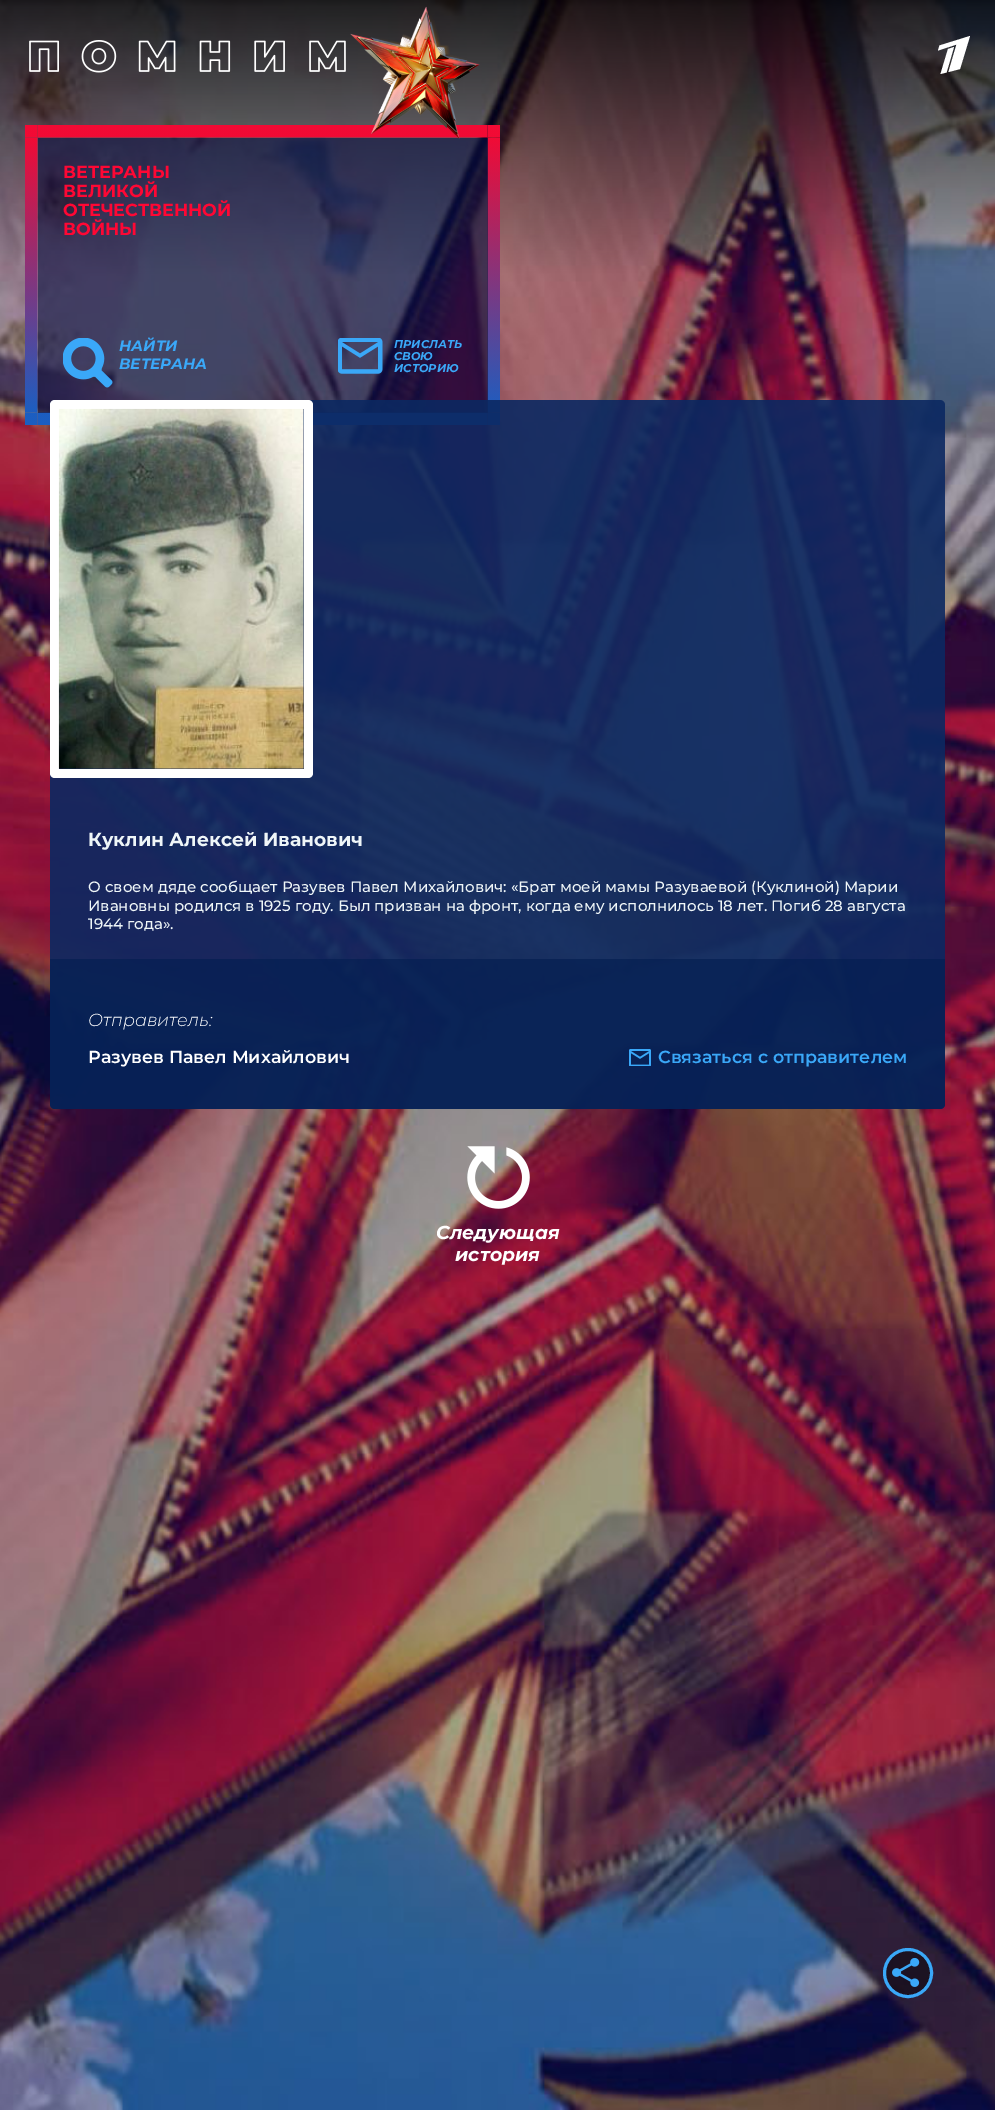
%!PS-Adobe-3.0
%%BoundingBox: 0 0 995 2110
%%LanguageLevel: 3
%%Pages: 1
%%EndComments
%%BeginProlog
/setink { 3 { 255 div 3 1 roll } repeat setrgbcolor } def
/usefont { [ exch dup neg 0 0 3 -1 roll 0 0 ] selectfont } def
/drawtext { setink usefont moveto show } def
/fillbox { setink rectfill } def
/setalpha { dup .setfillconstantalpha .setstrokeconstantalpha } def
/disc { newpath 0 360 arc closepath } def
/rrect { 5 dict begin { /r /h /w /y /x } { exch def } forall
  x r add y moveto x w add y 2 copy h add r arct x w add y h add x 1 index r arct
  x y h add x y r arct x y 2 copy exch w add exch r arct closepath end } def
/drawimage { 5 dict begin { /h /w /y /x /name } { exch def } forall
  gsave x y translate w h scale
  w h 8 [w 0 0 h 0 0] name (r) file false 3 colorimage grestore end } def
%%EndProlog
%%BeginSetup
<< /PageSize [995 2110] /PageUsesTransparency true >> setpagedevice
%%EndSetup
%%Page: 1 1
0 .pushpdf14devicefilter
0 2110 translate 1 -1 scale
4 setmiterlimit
0 0 995 2110 255 255 255 fillbox
(assets/img1.rgb) 0 0 995 2110 drawimage
(assets/img2.rgb) 29 40 317 33 drawimage
(assets/img4.rgb) 25 125 475 300 drawimage
0.6 setalpha
38 138 450 275 7 13 64 fillbox
1 setalpha
(assets/img3.rgb) 350 6 130 133 drawimage
255 255 255 setink
938 50.5 moveto 939.5 45.5 lineto 970 36 lineto 960 69 lineto 948.5 72 lineto 956.5 44.5 lineto closepath 940.5 74 moveto 948 49 lineto 954 47 lineto 946.5 72.5 lineto closepath eofill
(ВЕТЕРАНЫ) 63 178 /Montserrat-Bold 17.5 255 7 52 drawtext
(ВЕЛИКОЙ) 63 197 /Montserrat-Bold 17.5 255 7 52 drawtext
(ОТЕЧЕСТВЕННОЙ) 63 216 /Montserrat-Bold 17.5 255 7 52 drawtext
(ВОЙНЫ) 63 235 /Montserrat-Bold 17.5 255 7 52 drawtext
(assets/img5.rgb) 63 338 50 50 drawimage
(НАЙТИ) 119 351 /Montserrat-BoldItalic 15 58 168 248 drawtext
(ВЕТЕРАНА) 119 369 /Montserrat-BoldItalic 15 58 168 248 drawtext
(assets/img6.rgb) 338 338 45 36 drawimage
(ПРИСЛАТЬ) 394 348 /Montserrat-BoldItalic 11.25 58 168 248 drawtext
(СВОЮ) 394 360 /Montserrat-BoldItalic 11.25 58 168 248 drawtext
(ИСТОРИЮ) 394 372 /Montserrat-BoldItalic 11.25 58 168 248 drawtext
0.9 setalpha
11 40 97 setink
50 400 895 709 5 rrect fill
1 setalpha
255 255 255 setink
55 400 moveto 52 400 50 402 50 405 curveto 50 773 lineto 50 776 52 778 55 778 curveto 308 778 lineto 311 778 313 776 313 773 curveto 313 405 lineto 313 402 311 400 308 400 curveto closepath 59 409 moveto 59 769 lineto 304 769 lineto 304 409 lineto closepath eofill
(assets/img7.rgb) 58 408 246 361 drawimage
(Куклин Алексей Иванович) 88 846 /Montserrat-Bold 18.75 239 246 248 drawtext
(О своем дяде сообщает Разувев Павел Михайлович: «Брат моей мамы Разуваевой \(Куклиной\) Марии) 88 892 /Montserrat-Medium 15 239 246 248 drawtext
(Ивановны родился в 1925 году. Был призван на фронт, когда ему исполнилось 18 лет. Погиб 28 августа) 88 911 /Montserrat-Medium 15 239 246 248 drawtext
(1944 года».) 88 929 /Montserrat-Medium 15 239 246 248 drawtext
0.7 setalpha
4 30 81 setink
50 959 moveto 945 959 lineto 945 1104 lineto 945 1107 943 1109 940 1109 curveto 55 1109 lineto 52 1109 50 1107 50 1104 curveto closepath fill
1 setalpha
(Отправитель:) 88 1026 /Montserrat-LightItalic 17.5 255 255 255 drawtext
(Разувев Павел Михайлович) 88 1063 /Montserrat-SemiBold 17.5 255 255 255 drawtext
(assets/img8.rgb) 629 1049 22 17 drawimage
(Связаться с отправителем) 658 1063 /Montserrat-SemiBold 17.5 58 168 248 drawtext
(assets/img9.rgb) 467 1146 63 63 drawimage
(Следующая) 436 1239 /Montserrat-BoldItalic 18.75 255 255 255 drawtext
(история) 455 1261 /Montserrat-BoldItalic 18.75 255 255 255 drawtext
0.4 setalpha
0 0 0 setink
908 1973 25 disc fill
1 setalpha
(assets/img10.rgb) 892 1958 28 29 drawimage
58 168 248 setink
3 setlinewidth
908 1973 23.5 disc stroke
.poppdf14devicefilter showpage
%%EOF
